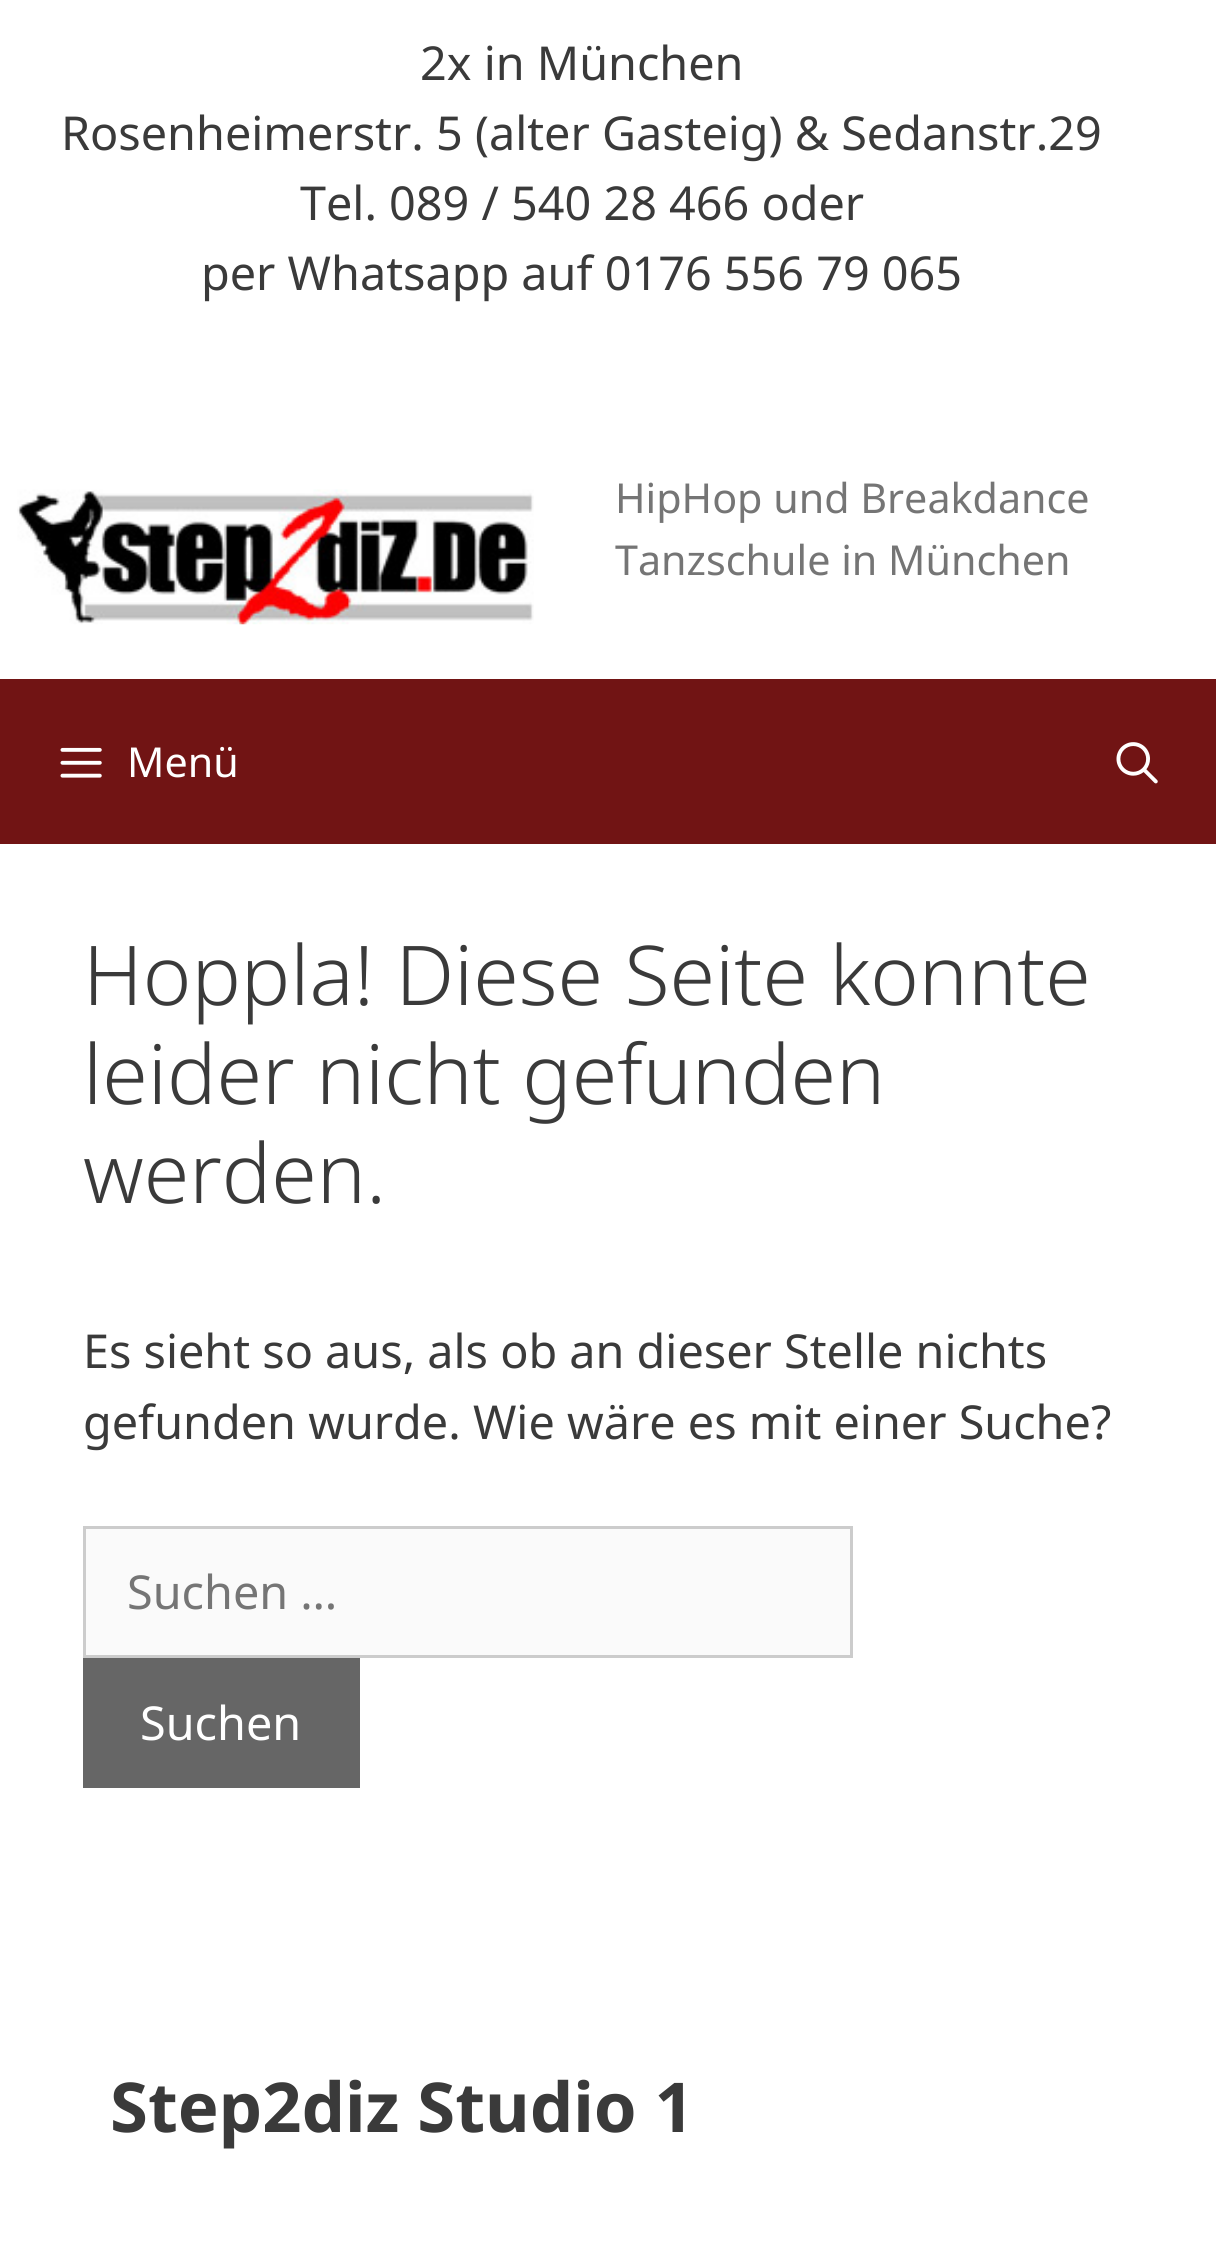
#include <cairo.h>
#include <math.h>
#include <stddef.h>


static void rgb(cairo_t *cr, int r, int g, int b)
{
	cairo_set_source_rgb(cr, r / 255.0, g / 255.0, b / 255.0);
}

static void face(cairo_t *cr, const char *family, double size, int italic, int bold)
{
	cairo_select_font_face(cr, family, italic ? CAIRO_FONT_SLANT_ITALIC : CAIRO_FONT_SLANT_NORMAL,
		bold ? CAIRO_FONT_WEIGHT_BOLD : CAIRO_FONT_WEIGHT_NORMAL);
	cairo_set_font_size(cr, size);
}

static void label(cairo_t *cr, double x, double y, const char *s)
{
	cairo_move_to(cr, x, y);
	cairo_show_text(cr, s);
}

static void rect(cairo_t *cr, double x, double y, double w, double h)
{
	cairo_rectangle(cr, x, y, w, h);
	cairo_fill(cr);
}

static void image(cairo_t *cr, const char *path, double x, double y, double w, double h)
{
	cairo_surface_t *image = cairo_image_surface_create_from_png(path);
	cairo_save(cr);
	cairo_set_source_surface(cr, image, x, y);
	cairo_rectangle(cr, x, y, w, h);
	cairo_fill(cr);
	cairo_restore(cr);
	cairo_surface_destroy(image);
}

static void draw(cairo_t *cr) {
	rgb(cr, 113, 20, 20);
	cairo_paint(cr);
	rgb(cr, 255, 255, 255);
	rect(cr, 0, 0, 1216, 679);
	face(cr, "Noto Sans", 46.75, 0, 0);
	rgb(cr, 58, 58, 58);
	label(cr, 420, 80, "2x in München");
	label(cr, 61, 150, "Rosenheimerstr. 5 (alter Gasteig) & Sedanstr.29");
	label(cr, 300, 220, "Tel. 089 / 540 28 466 oder");
	label(cr, 201, 290, "per Whatsapp auf 0176 556 79 065");
	image(cr, "image0.png", 17, 489, 517, 136);
	face(cr, "Noto Sans", 41.25, 0, 0);
	rgb(cr, 117, 117, 117);
	label(cr, 615, 513, "HipHop und Breakdance");
	label(cr, 615, 575, "Tanzschule in München");
	image(cr, "image1.png", 60, 747, 42, 31);
	rgb(cr, 255, 255, 255);
	label(cr, 127, 777, "Menü");
	image(cr, "image2.png", 1116, 742, 42, 42);
	rect(cr, 0, 844, 1216, 1404);
	face(cr, "Noto Sans Light", 82.5, 0, 0);
	rgb(cr, 58, 58, 58);
	label(cr, 83, 1005, "Hoppla! Diese Seite konnte");
	label(cr, 83, 1104, "leider nicht gefunden");
	label(cr, 83, 1203, "werden.");
	face(cr, "Noto Sans", 46.75, 0, 0);
	label(cr, 83, 1368, "Es sieht so aus, als ob an dieser Stelle nichts");
	label(cr, 83, 1439, "gefunden wurde. Wie wäre es mit einer Suche?");
	rgb(cr, 250, 250, 250);
	cairo_rectangle(cr, 84.5, 1527.5, 767, 129);
	cairo_fill_preserve(cr);
	rgb(cr, 204, 204, 204);
	cairo_set_line_width(cr, 3);
	cairo_stroke(cr);
	rgb(cr, 117, 117, 117);
	label(cr, 127, 1609, "Suchen …");
	rgb(cr, 102, 102, 102);
	rect(cr, 83, 1658, 277, 130);
	rgb(cr, 255, 255, 255);
	label(cr, 140, 1740, "Suchen");
	face(cr, "Noto Sans", 68.75, 0, 1);
	rgb(cr, 58, 58, 58);
	label(cr, 110, 2132, "Step2diz Studio 1");
}

int main(void) {
	cairo_surface_t *surface = cairo_image_surface_create(CAIRO_FORMAT_RGB24, 1216, 2248);
	cairo_t *cr = cairo_create(surface);
	cairo_font_options_t *options = cairo_font_options_create();
	cairo_font_options_set_hint_metrics(options, CAIRO_HINT_METRICS_OFF);
	cairo_font_options_set_hint_style(options, CAIRO_HINT_STYLE_NONE);
	cairo_set_font_options(cr, options);
	cairo_set_miter_limit(cr, 4);
	draw(cr);
	cairo_surface_write_to_png(surface, "render.png");
	cairo_font_options_destroy(options);
	cairo_destroy(cr);
	cairo_surface_destroy(surface);
	return 0;
}
